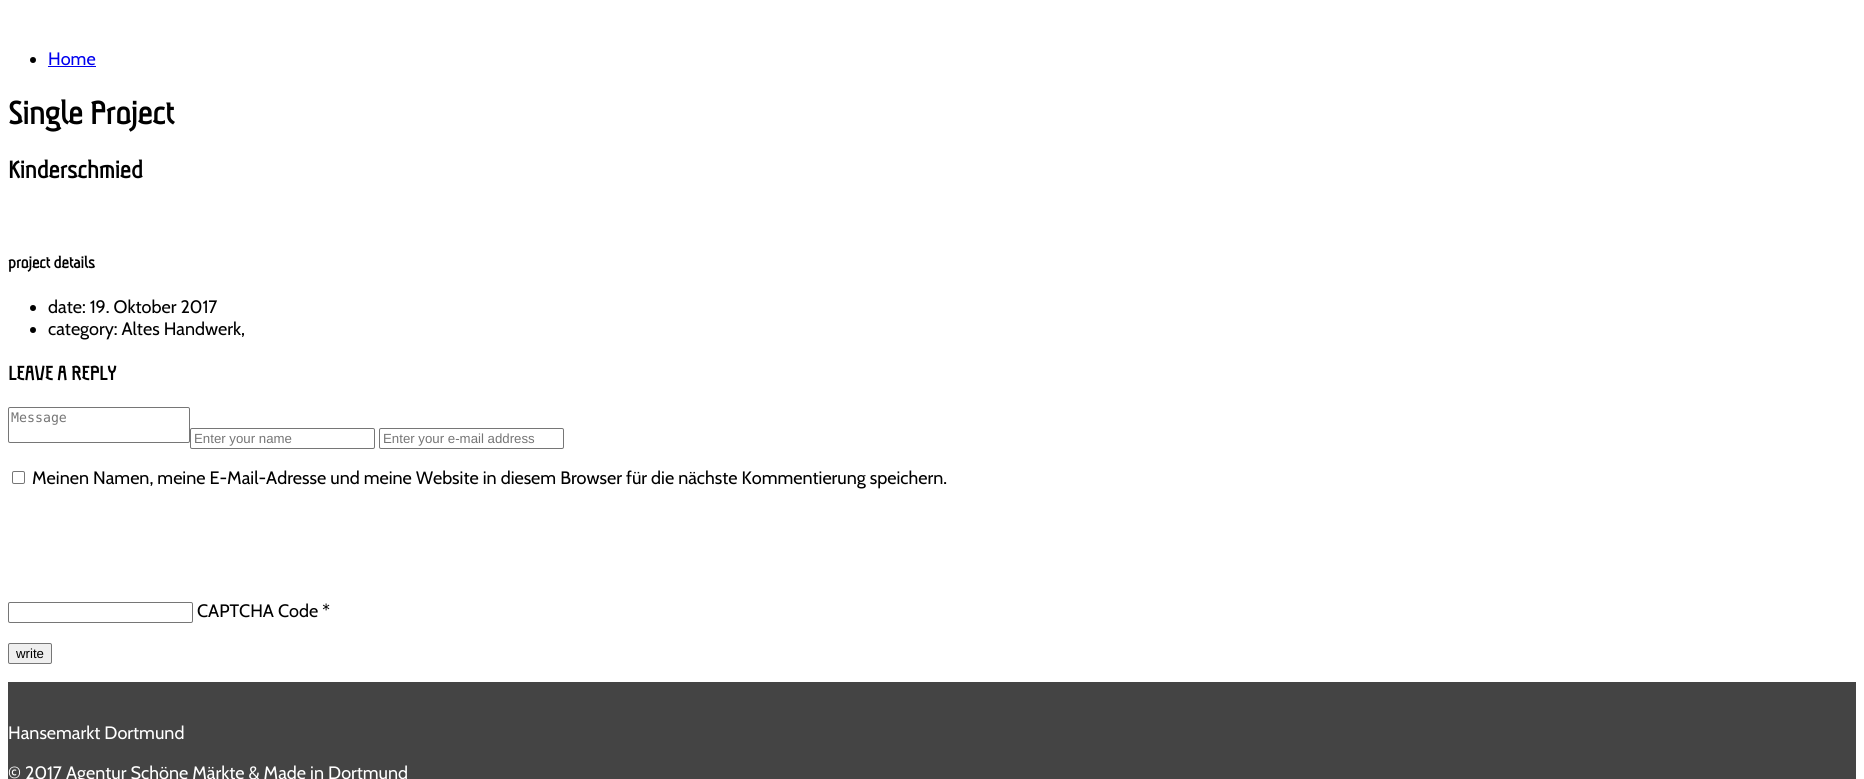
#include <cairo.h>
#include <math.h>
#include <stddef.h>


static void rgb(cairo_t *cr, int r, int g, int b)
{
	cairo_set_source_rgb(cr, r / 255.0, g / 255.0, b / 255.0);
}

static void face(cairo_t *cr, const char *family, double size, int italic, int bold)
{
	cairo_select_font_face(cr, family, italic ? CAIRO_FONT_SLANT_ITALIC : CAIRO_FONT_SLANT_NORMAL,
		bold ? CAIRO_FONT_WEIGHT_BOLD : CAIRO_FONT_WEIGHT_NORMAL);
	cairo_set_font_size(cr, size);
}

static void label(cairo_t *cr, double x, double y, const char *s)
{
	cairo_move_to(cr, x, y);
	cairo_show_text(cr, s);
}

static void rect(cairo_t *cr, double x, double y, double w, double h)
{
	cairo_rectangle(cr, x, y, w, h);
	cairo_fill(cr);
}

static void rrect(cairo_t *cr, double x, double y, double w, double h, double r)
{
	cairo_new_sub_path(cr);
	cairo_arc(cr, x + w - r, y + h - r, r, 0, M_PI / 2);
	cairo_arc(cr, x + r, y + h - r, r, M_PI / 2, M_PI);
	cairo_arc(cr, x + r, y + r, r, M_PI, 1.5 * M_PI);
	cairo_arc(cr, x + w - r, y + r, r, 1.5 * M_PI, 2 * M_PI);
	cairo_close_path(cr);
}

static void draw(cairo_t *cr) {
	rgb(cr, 255, 255, 255);
	cairo_paint(cr);
	rgb(cr, 0, 0, 0);
	cairo_arc(cr, 33, 60, 3, 0, 2 * M_PI);
	cairo_fill(cr);
	face(cr, "Cabin", 18, 0, 0);
	rgb(cr, 0, 0, 238);
	label(cr, 48, 65, "Home");
	rect(cr, 48, 66, 48, 1);
	face(cr, "Aubrey", 36, 0, 1);
	rgb(cr, 0, 0, 0);
	label(cr, 8, 124, "Single Project");
	face(cr, "Aubrey", 27, 0, 1);
	label(cr, 8, 178, "Kinderschmied");
	face(cr, "Aubrey", 18, 0, 1);
	label(cr, 8, 268, "project details");
	cairo_new_path(cr);
	cairo_arc(cr, 33, 308, 3, 0, 2 * M_PI);
	cairo_fill(cr);
	face(cr, "Cabin", 18, 0, 0);
	label(cr, 48, 313, "date: 19. Oktober 2017");
	cairo_new_path(cr);
	cairo_arc(cr, 33, 330, 3, 0, 2 * M_PI);
	cairo_fill(cr);
	label(cr, 48, 335, "category: Altes Handwerk,");
	face(cr, "Aubrey", 22, 0, 1);
	label(cr, 8, 380, "LEAVE A REPLY");
	rrect(cr, 8.5, 407.5, 181, 35, 1.5);
	rgb(cr, 118, 118, 118);
	cairo_set_line_width(cr, 1);
	cairo_stroke(cr);
	face(cr, "DejaVu Sans Mono", 13.25, 0, 0);
	rgb(cr, 117, 117, 117);
	label(cr, 11, 422, "Message");
	rrect(cr, 190.5, 428.5, 184, 20, 1.5);
	rgb(cr, 118, 118, 118);
	cairo_stroke(cr);
	face(cr, "Liberation Sans", 13.25, 0, 0);
	rgb(cr, 117, 117, 117);
	label(cr, 194, 443, "Enter your name");
	rrect(cr, 379.5, 428.5, 184, 20, 1.5);
	rgb(cr, 118, 118, 118);
	cairo_stroke(cr);
	rgb(cr, 117, 117, 117);
	label(cr, 383, 443, "Enter your e-mail address");
	rrect(cr, 12.5, 471.5, 12, 12, 1.5);
	rgb(cr, 118, 118, 118);
	cairo_stroke(cr);
	face(cr, "Cabin", 18, 0, 0);
	rgb(cr, 0, 0, 0);
	label(cr, 32, 484, "Meinen Namen, meine E-Mail-Adresse und meine Website in diesem Browser für die nächste Kommentierung speichern.");
	rrect(cr, 8.5, 602.5, 184, 20, 1.5);
	rgb(cr, 118, 118, 118);
	cairo_stroke(cr);
	rgb(cr, 0, 0, 0);
	label(cr, 197, 617, "CAPTCHA Code *");
	rgb(cr, 239, 239, 239);
	rrect(cr, 8.5, 643.5, 43, 20, 1.5);
	cairo_fill_preserve(cr);
	rgb(cr, 118, 118, 118);
	cairo_stroke(cr);
	face(cr, "Liberation Sans", 13.25, 0, 0);
	rgb(cr, 0, 0, 0);
	label(cr, 16, 658, "write");
	rgb(cr, 68, 68, 68);
	rect(cr, 8, 682, 1848, 97);
	face(cr, "Cabin", 18, 0, 0);
	rgb(cr, 255, 255, 255);
	label(cr, 8, 739, "Hansemarkt Dortmund");
	label(cr, 8, 779, "© 2017 Agentur Schöne Märkte & Made in Dortmund");
}

int main(void) {
	cairo_surface_t *surface = cairo_image_surface_create(CAIRO_FORMAT_RGB24, 1864, 779);
	cairo_t *cr = cairo_create(surface);
	cairo_font_options_t *options = cairo_font_options_create();
	cairo_font_options_set_hint_metrics(options, CAIRO_HINT_METRICS_OFF);
	cairo_font_options_set_hint_style(options, CAIRO_HINT_STYLE_NONE);
	cairo_set_font_options(cr, options);
	cairo_set_miter_limit(cr, 4);
	draw(cr);
	cairo_surface_write_to_png(surface, "render.png");
	cairo_font_options_destroy(options);
	cairo_destroy(cr);
	cairo_surface_destroy(surface);
	return 0;
}
